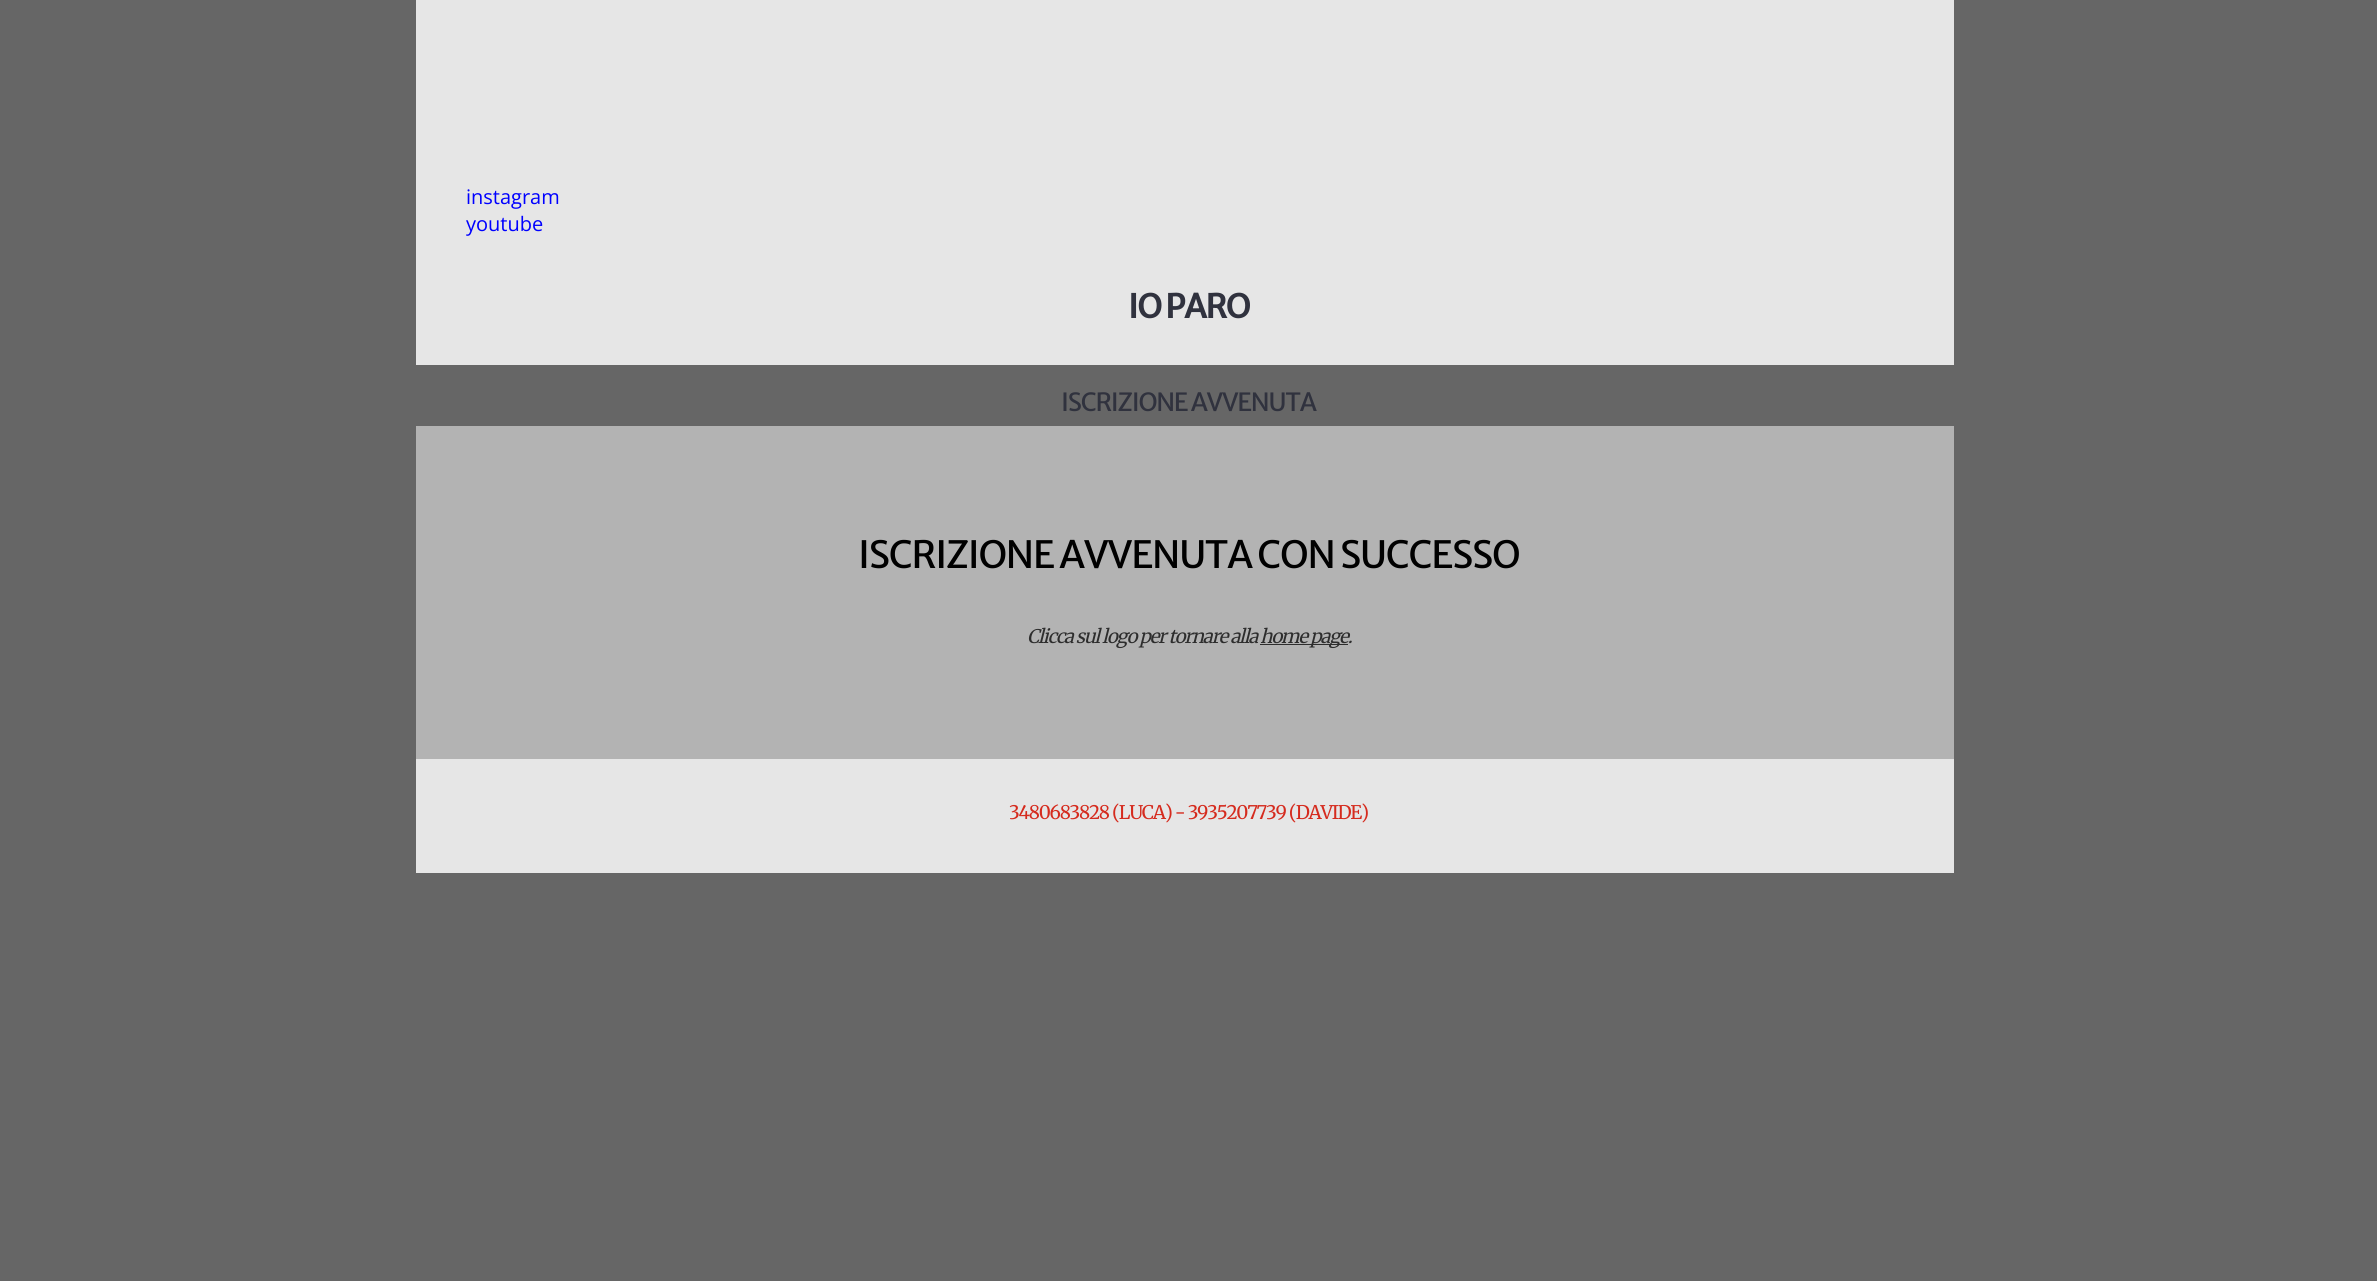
#include <cairo.h>
#include <math.h>
#include <stddef.h>


static void rgb(cairo_t *cr, int r, int g, int b)
{
	cairo_set_source_rgb(cr, r / 255.0, g / 255.0, b / 255.0);
}

static void face(cairo_t *cr, const char *family, double size, int italic, int bold)
{
	cairo_select_font_face(cr, family, italic ? CAIRO_FONT_SLANT_ITALIC : CAIRO_FONT_SLANT_NORMAL,
		bold ? CAIRO_FONT_WEIGHT_BOLD : CAIRO_FONT_WEIGHT_NORMAL);
	cairo_set_font_size(cr, size);
}

static void label(cairo_t *cr, double x, double y, const char *s)
{
	cairo_move_to(cr, x, y);
	cairo_show_text(cr, s);
}

static void tracked(cairo_t *cr, double x, double y, const char *s, double letter, double word)
{
	cairo_move_to(cr, x, y);
	while (*s) {
		char ch[5] = {0};
		int n = 0;
		do ch[n++] = *s++; while ((*s & 0xC0) == 0x80);
		cairo_show_text(cr, ch);
		cairo_rel_move_to(cr, letter + word * (*ch == ' '), 0);
	}
}

static void rect(cairo_t *cr, double x, double y, double w, double h)
{
	cairo_rectangle(cr, x, y, w, h);
	cairo_fill(cr);
}

static void draw(cairo_t *cr) {
	rgb(cr, 102, 102, 102);
	cairo_paint(cr);
	rgb(cr, 230, 230, 230);
	rect(cr, 416, 0, 1538, 365);
	face(cr, "Open Sans", 20, 0, 0);
	rgb(cr, 0, 0, 255);
	label(cr, 466, 204, "instagram");
	label(cr, 466, 231, "youtube");
	face(cr, "Merriweather Sans", 32.5, 0, 1);
	rgb(cr, 48, 50, 62);
	tracked(cr, 1128, 318, "IO PARO", -1.25, 0);
	face(cr, "Merriweather Sans", 25, 0, 0);
	tracked(cr, 1061, 411, "ISCRIZIONE AVVENUTA", -1.25, 0);
	rgb(cr, 179, 179, 179);
	rect(cr, 416, 426, 1538, 333);
	face(cr, "Merriweather Sans", 37.5, 0, 0);
	rgb(cr, 0, 0, 0);
	tracked(cr, 858, 568, "ISCRIZIONE AVVENUTA CON SUCCESSO", -1.25, 0);
	face(cr, "Merriweather", 18.75, 1, 0);
	rgb(cr, 45, 45, 45);
	tracked(cr, 1027, 643, "Clicca sul logo per tornare alla", -1.25, 0);
	rect(cr, 1260, 644, 88, 1);
	tracked(cr, 1260, 643, "home page.", -1.25, 0);
	rgb(cr, 230, 230, 230);
	rect(cr, 416, 759, 1538, 114);
	face(cr, "Merriweather", 18.75, 0, 0);
	rgb(cr, 213, 43, 30);
	tracked(cr, 1009, 819, "3480683828 (LUCA) - 3935207739 (DAVIDE)", -1.25, 0);
}

int main(void) {
	cairo_surface_t *surface = cairo_image_surface_create(CAIRO_FORMAT_RGB24, 2377, 1281);
	cairo_t *cr = cairo_create(surface);
	cairo_font_options_t *options = cairo_font_options_create();
	cairo_font_options_set_hint_metrics(options, CAIRO_HINT_METRICS_OFF);
	cairo_font_options_set_hint_style(options, CAIRO_HINT_STYLE_NONE);
	cairo_set_font_options(cr, options);
	cairo_set_miter_limit(cr, 4);
	draw(cr);
	cairo_surface_write_to_png(surface, "render.png");
	cairo_font_options_destroy(options);
	cairo_destroy(cr);
	cairo_surface_destroy(surface);
	return 0;
}
